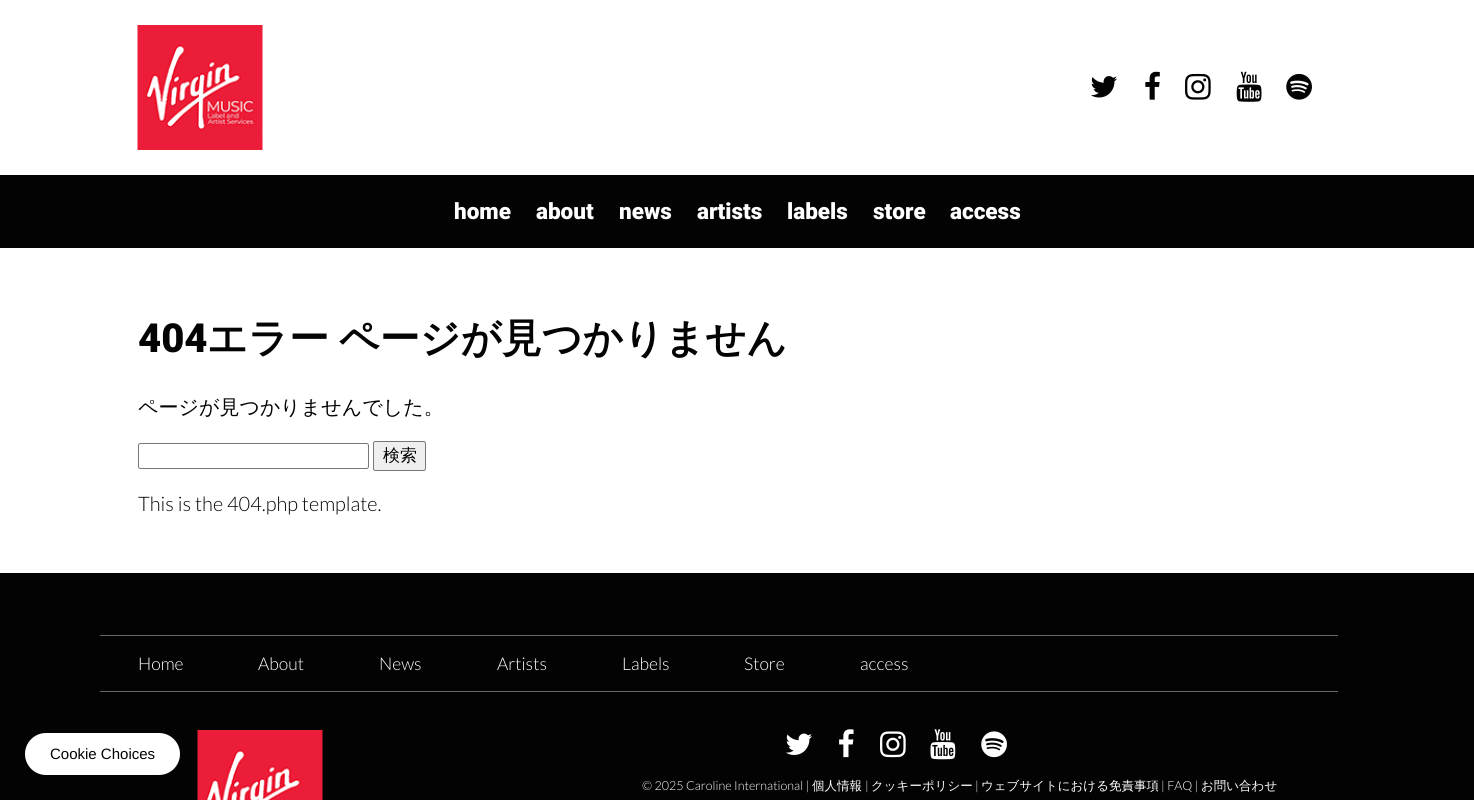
#include <cairo.h>
#include <math.h>
#include <stddef.h>


static void rgb(cairo_t *cr, int r, int g, int b)
{
	cairo_set_source_rgb(cr, r / 255.0, g / 255.0, b / 255.0);
}

static void face(cairo_t *cr, const char *family, double size, int italic, int bold)
{
	cairo_select_font_face(cr, family, italic ? CAIRO_FONT_SLANT_ITALIC : CAIRO_FONT_SLANT_NORMAL,
		bold ? CAIRO_FONT_WEIGHT_BOLD : CAIRO_FONT_WEIGHT_NORMAL);
	cairo_set_font_size(cr, size);
}

static void label(cairo_t *cr, double x, double y, const char *s)
{
	cairo_move_to(cr, x, y);
	cairo_show_text(cr, s);
}

static void tracked(cairo_t *cr, double x, double y, const char *s, double letter, double word)
{
	cairo_move_to(cr, x, y);
	while (*s) {
		char ch[5] = {0};
		int n = 0;
		do ch[n++] = *s++; while ((*s & 0xC0) == 0x80);
		cairo_show_text(cr, ch);
		cairo_rel_move_to(cr, letter + word * (*ch == ' '), 0);
	}
}

static void rect(cairo_t *cr, double x, double y, double w, double h)
{
	cairo_rectangle(cr, x, y, w, h);
	cairo_fill(cr);
}

static void rrect(cairo_t *cr, double x, double y, double w, double h, double r)
{
	cairo_new_sub_path(cr);
	cairo_arc(cr, x + w - r, y + h - r, r, 0, M_PI / 2);
	cairo_arc(cr, x + r, y + h - r, r, M_PI / 2, M_PI);
	cairo_arc(cr, x + r, y + r, r, M_PI, 1.5 * M_PI);
	cairo_arc(cr, x + w - r, y + r, r, 1.5 * M_PI, 2 * M_PI);
	cairo_close_path(cr);
}

static void image(cairo_t *cr, const char *path, double x, double y, double w, double h)
{
	cairo_surface_t *image = cairo_image_surface_create_from_png(path);
	cairo_save(cr);
	cairo_set_source_surface(cr, image, x, y);
	cairo_rectangle(cr, x, y, w, h);
	cairo_fill(cr);
	cairo_restore(cr);
	cairo_surface_destroy(image);
}

static void draw(cairo_t *cr) {
	rgb(cr, 255, 255, 255);
	cairo_paint(cr);
	rgb(cr, 3, 3, 3);
	rect(cr, 0, 573, 1474, 227);
	rgb(cr, 255, 255, 255);
	rrect(cr, 25, 733, 155, 42, 21);
	cairo_fill(cr);
	face(cr, "Liberation Sans", 15, 0, 0);
	rgb(cr, 3, 3, 3);
	label(cr, 50, 759, "Cookie Choices");
	image(cr, "image0.png", 137, 25, 126, 125);
	image(cr, "image1.png", 1091, 76, 26, 22);
	image(cr, "image2.png", 1145, 71, 15, 29);
	image(cr, "image3.png", 1185, 73, 26, 27);
	image(cr, "image4.png", 1236, 71, 26, 31);
	image(cr, "image5.png", 1286, 73, 26, 27);
	rect(cr, 0, 175, 1474, 73);
	face(cr, "Roboto Black", 22.5, 0, 0);
	rgb(cr, 255, 255, 255);
	label(cr, 454, 219, "home");
	label(cr, 536, 219, "about");
	label(cr, 619, 219, "news");
	label(cr, 697, 219, "artists");
	label(cr, 787, 219, "labels");
	label(cr, 873, 219, "store");
	label(cr, 950, 219, "access");
	face(cr, "Roboto Black", 40, 0, 0);
	rgb(cr, 3, 3, 3);
	label(cr, 138, 352, "404");
	face(cr, "WenQuanYi Zen Hei", 40, 0, 1);
	tracked(cr, 207, 352, "エラー ページが見つかりません", 0, -2);
	face(cr, "WenQuanYi Zen Hei Medium", 20, 0, 0);
	label(cr, 138, 414, "ページが見つかりませんでした。");
	rrect(cr, 138.5, 443.5, 230, 25, 2);
	rgb(cr, 119, 119, 119);
	cairo_set_line_width(cr, 1);
	cairo_stroke(cr);
	rgb(cr, 239, 239, 239);
	rrect(cr, 373.5, 441.5, 52, 29, 2);
	cairo_fill_preserve(cr);
	rgb(cr, 119, 119, 119);
	cairo_stroke(cr);
	face(cr, "WenQuanYi Zen Hei Medium", 17, 0, 0);
	rgb(cr, 3, 3, 3);
	label(cr, 383, 461, "検索");
	face(cr, "Lato Light", 20, 0, 0);
	label(cr, 138, 511, "This is the 404.php template.");
	rgb(cr, 104, 104, 104);
	rect(cr, 100, 635, 1238, 1);
	rect(cr, 100, 691, 1238, 1);
	face(cr, "Lato Light", 17.5, 0, 0);
	rgb(cr, 255, 255, 255);
	label(cr, 138, 670, "Home");
	label(cr, 258, 670, "About");
	label(cr, 379, 670, "News");
	label(cr, 497, 670, "Artists");
	label(cr, 622, 670, "Labels");
	label(cr, 744, 670, "Store");
	label(cr, 860, 670, "access");
	image(cr, "image6.png", 197, 730, 126, 70);
	image(cr, "image7.png", 786, 733, 26, 22);
	image(cr, "image8.png", 839, 729, 15, 29);
	image(cr, "image9.png", 880, 731, 26, 27);
	image(cr, "image10.png", 930, 729, 26, 31);
	image(cr, "image11.png", 981, 731, 26, 27);
	face(cr, "Lato Light", 12.5, 0, 0);
	label(cr, 642, 790, "© 2025 Caroline International |");
	face(cr, "WenQuanYi Zen Hei Medium", 12.5, 0, 0);
	label(cr, 812, 790, "個人情報");
	face(cr, "Lato Light", 12.5, 0, 0);
	label(cr, 865, 790, "|");
	face(cr, "WenQuanYi Zen Hei Medium", 12.5, 0, 0);
	label(cr, 871, 790, "クッキーポリシー");
	face(cr, "Lato Light", 12.5, 0, 0);
	label(cr, 975, 790, "|");
	face(cr, "WenQuanYi Zen Hei Medium", 12.5, 0, 0);
	label(cr, 981, 790, "ウェブサイトにおける免責事項");
	face(cr, "Lato Light", 12.5, 0, 0);
	label(cr, 1161, 790, "| FAQ |");
	face(cr, "WenQuanYi Zen Hei Medium", 12.5, 0, 0);
	label(cr, 1201, 790, "お問い合わせ");
}

int main(void) {
	cairo_surface_t *surface = cairo_image_surface_create(CAIRO_FORMAT_RGB24, 1474, 800);
	cairo_t *cr = cairo_create(surface);
	cairo_font_options_t *options = cairo_font_options_create();
	cairo_font_options_set_hint_metrics(options, CAIRO_HINT_METRICS_OFF);
	cairo_font_options_set_hint_style(options, CAIRO_HINT_STYLE_NONE);
	cairo_set_font_options(cr, options);
	cairo_set_miter_limit(cr, 4);
	draw(cr);
	cairo_surface_write_to_png(surface, "render.png");
	cairo_font_options_destroy(options);
	cairo_destroy(cr);
	cairo_surface_destroy(surface);
	return 0;
}
